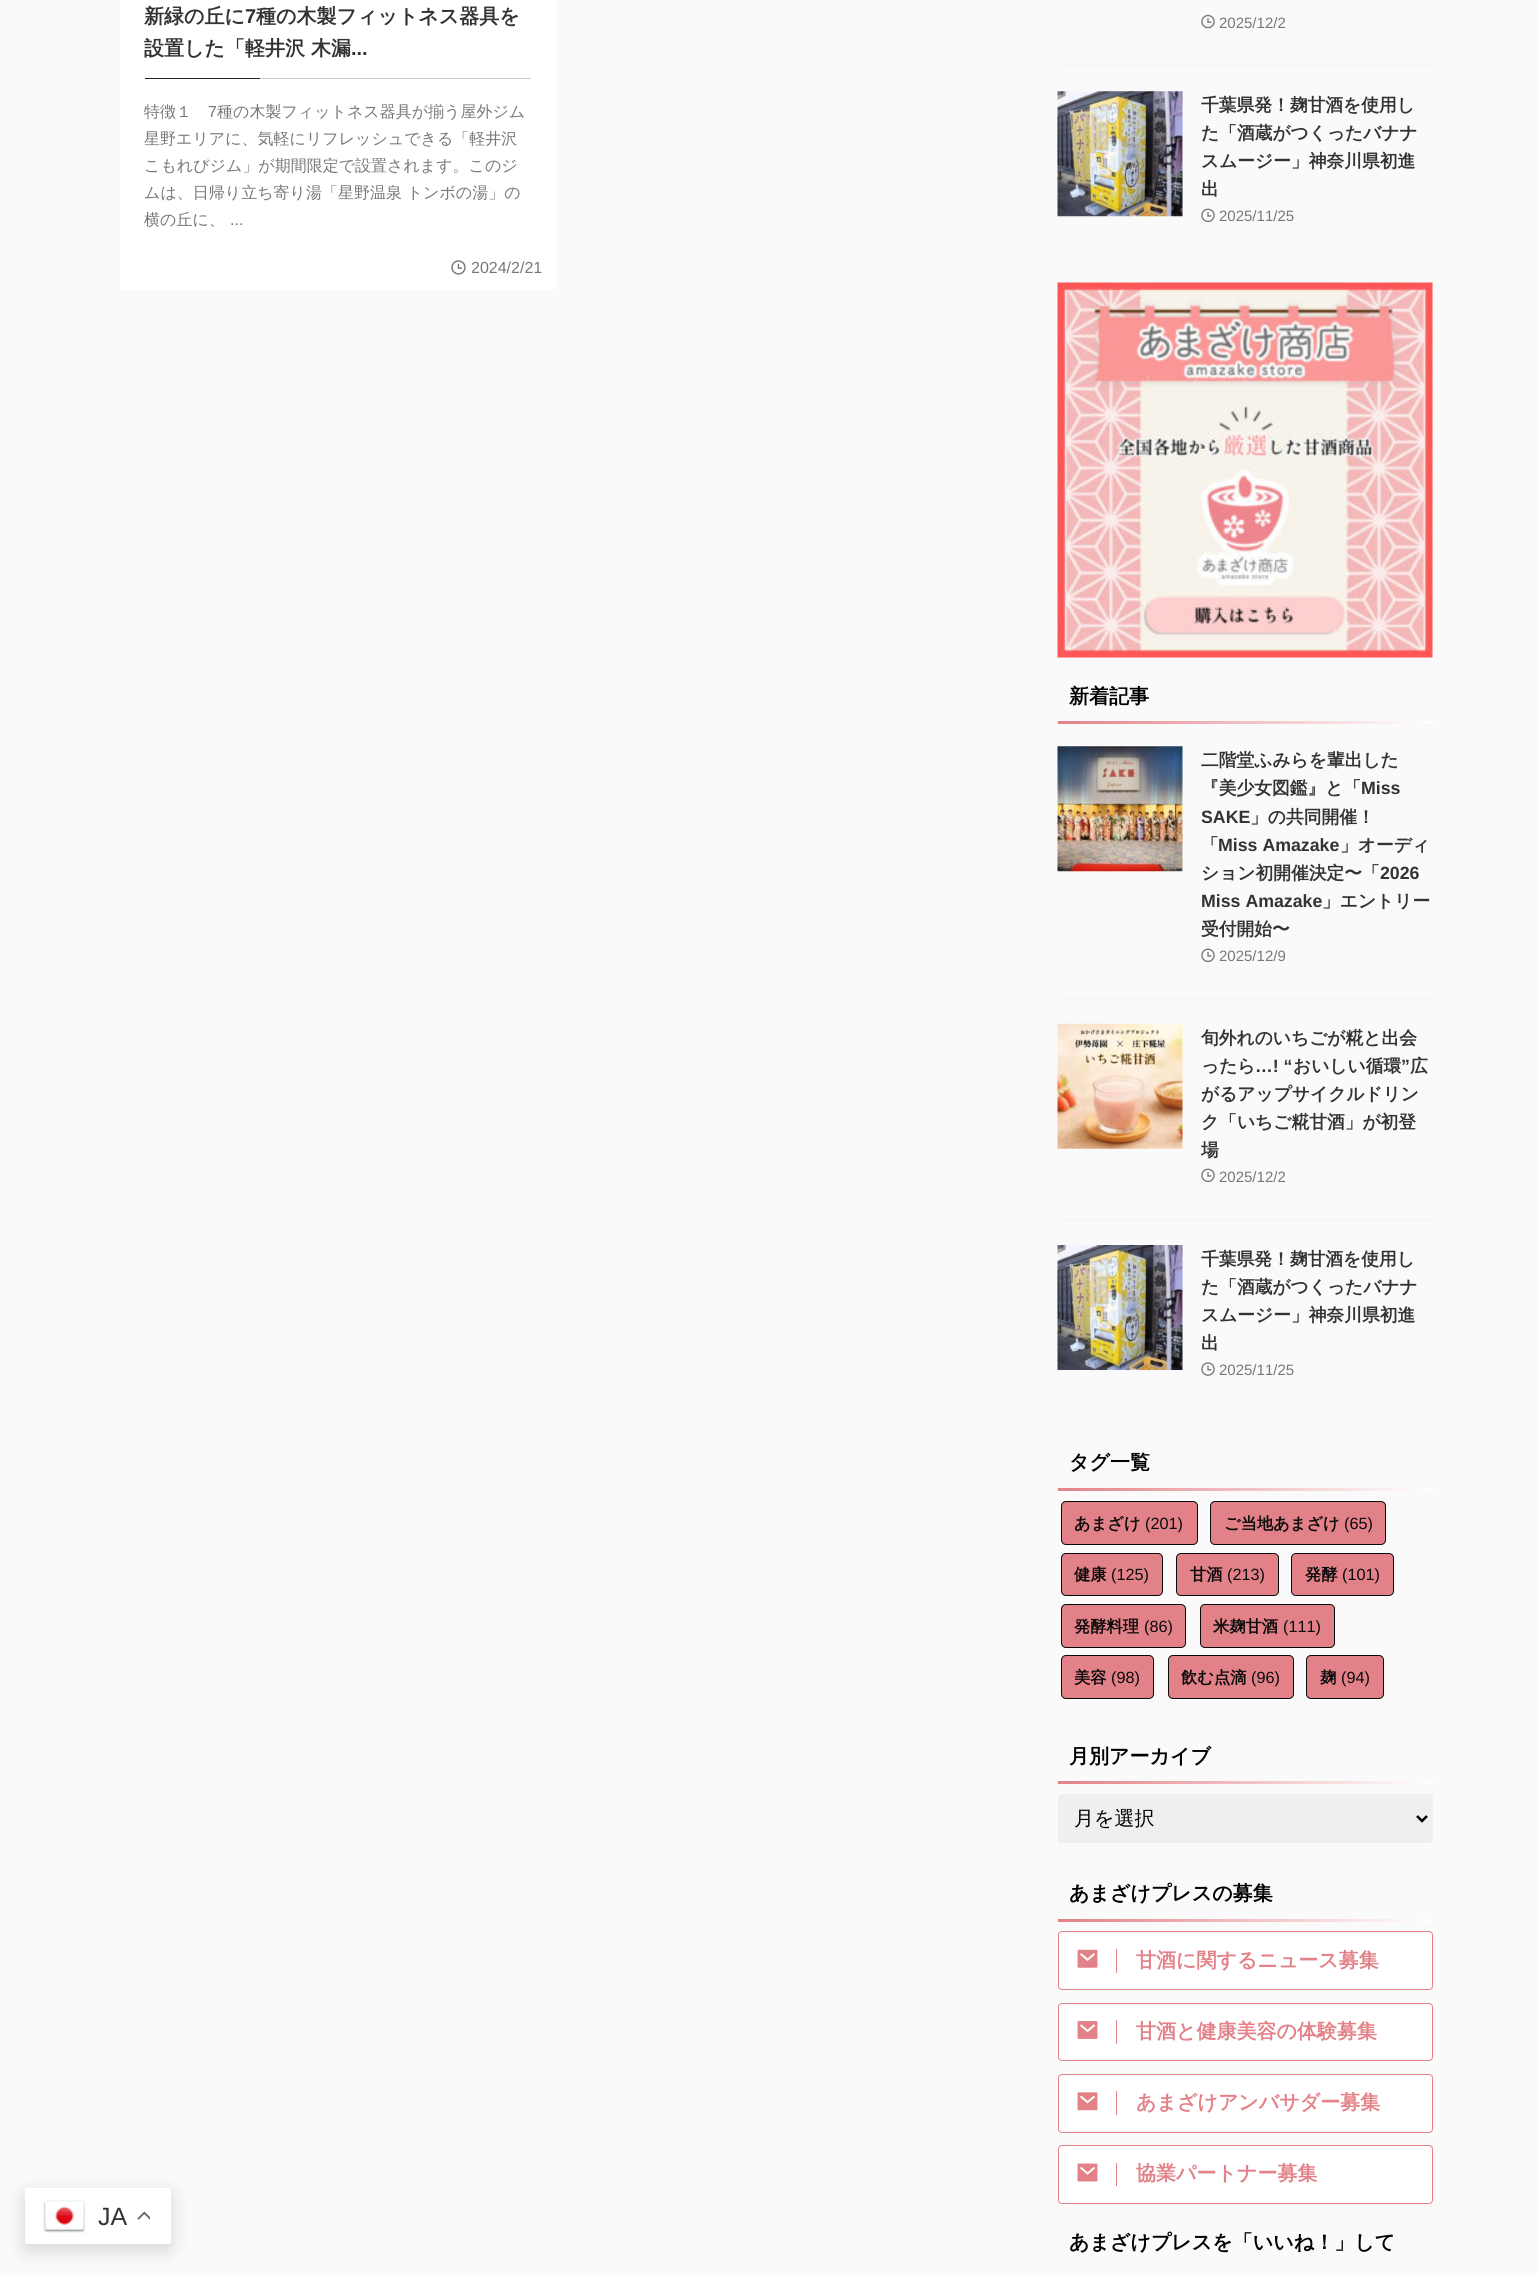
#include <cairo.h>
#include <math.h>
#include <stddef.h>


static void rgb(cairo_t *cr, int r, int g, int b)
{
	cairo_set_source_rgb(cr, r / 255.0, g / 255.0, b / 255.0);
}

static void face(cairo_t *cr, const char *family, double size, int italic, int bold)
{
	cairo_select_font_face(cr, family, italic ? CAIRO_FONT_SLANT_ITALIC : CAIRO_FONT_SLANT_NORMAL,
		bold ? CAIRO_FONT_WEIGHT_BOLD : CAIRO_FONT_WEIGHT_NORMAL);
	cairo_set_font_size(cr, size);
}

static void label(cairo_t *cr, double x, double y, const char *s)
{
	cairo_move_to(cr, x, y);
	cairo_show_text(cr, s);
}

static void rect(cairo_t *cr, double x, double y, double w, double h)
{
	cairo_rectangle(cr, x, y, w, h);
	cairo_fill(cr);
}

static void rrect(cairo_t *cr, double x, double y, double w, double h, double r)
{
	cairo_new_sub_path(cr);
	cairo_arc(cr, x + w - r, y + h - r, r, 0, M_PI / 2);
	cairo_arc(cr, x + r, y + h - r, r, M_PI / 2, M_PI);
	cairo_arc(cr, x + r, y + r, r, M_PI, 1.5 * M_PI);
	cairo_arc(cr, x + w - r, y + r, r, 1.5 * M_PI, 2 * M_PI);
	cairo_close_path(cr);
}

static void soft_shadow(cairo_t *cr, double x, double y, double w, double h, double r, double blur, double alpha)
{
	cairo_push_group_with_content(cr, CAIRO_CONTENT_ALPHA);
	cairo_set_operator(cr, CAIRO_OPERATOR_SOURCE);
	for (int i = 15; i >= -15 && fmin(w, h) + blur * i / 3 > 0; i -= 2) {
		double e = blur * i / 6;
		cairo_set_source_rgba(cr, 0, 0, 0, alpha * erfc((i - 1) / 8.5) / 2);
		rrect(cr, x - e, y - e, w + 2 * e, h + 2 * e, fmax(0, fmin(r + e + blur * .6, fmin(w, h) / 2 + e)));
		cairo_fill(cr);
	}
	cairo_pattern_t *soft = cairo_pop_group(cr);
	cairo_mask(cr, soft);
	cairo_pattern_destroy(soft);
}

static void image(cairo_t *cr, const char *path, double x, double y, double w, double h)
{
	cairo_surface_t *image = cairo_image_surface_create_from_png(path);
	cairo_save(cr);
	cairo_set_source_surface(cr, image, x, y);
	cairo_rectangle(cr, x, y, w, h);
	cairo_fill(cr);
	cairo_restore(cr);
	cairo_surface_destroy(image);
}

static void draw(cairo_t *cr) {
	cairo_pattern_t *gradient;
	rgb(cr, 250, 250, 250);
	cairo_paint(cr);
	rgb(cr, 0, 0, 0);
	soft_shadow(cr, 25, 2194, 146, 56, 2.5, 9.5, 0.15);
	rgb(cr, 255, 255, 255);
	rrect(cr, 25, 2188, 146, 56, 2.5);
	cairo_fill(cr);
	image(cr, "image0.png", 43, 2200, 42, 33);
	face(cr, "Liberation Sans", 25, 0, 0);
	rgb(cr, 51, 51, 51);
	label(cr, 98, 2225, "JA");
	image(cr, "image1.png", 137, 2211, 13, 9);
	rgb(cr, 255, 255, 255);
	rect(cr, 120, 0, 436, 290);
	rgb(cr, 204, 204, 204);
	rect(cr, 260, 78, 271, 1);
	face(cr, "WenQuanYi Zen Hei", 20, 0, 1);
	rgb(cr, 51, 51, 51);
	label(cr, 144, 23, "新緑の丘に");
	face(cr, "Liberation Sans", 20, 0, 1);
	label(cr, 245, 23, "7");
	face(cr, "WenQuanYi Zen Hei", 20, 0, 1);
	label(cr, 256, 23, "種の木製フィットネス器具を");
	label(cr, 144, 55, "設置した「軽井沢 木漏");
	face(cr, "Liberation Sans", 20, 0, 1);
	label(cr, 351, 55, "...");
	rgb(cr, 33, 33, 33);
	rect(cr, 145, 78, 115, 1);
	face(cr, "WenQuanYi Zen Hei Medium", 16, 0, 0);
	rgb(cr, 119, 119, 119);
	label(cr, 144, 117, "特徴１");
	face(cr, "Liberation Sans", 16, 0, 0);
	label(cr, 208, 117, "7");
	face(cr, "WenQuanYi Zen Hei Medium", 16, 0, 0);
	label(cr, 217, 117, "種の木製フィットネス器具が揃う屋外ジム");
	label(cr, 144, 144, "星野エリアに、気軽にリフレッシュできる「軽井沢");
	label(cr, 144, 171, "こもれびジム」が期間限定で設置されます。このジ");
	label(cr, 144, 198, "ムは、日帰り立ち寄り湯「星野温泉 トンボの湯」の");
	label(cr, 144, 225, "横の丘に、");
	face(cr, "Liberation Sans", 16, 0, 0);
	label(cr, 230, 225, "...");
	image(cr, "image2.png", 451, 260, 15, 15);
	label(cr, 471, 273, "2024/2/21");
	rgb(cr, 243, 243, 243);
	rect(cr, 1058, 65, 375, 1);
	image(cr, "image3.png", 1201, 14, 14, 15);
	face(cr, "Liberation Sans", 15, 0, 0);
	rgb(cr, 119, 119, 119);
	label(cr, 1219, 28, "2025/12/2");
	image(cr, "image4.png", 1057, 91, 126, 126);
	face(cr, "WenQuanYi Zen Hei", 17.75, 0, 1);
	rgb(cr, 51, 51, 51);
	label(cr, 1201, 111, "千葉県発！麹甘酒を使用し");
	label(cr, 1201, 139, "た「酒蔵がつくったバナナ");
	label(cr, 1201, 167, "スムージー」神奈川県初進");
	label(cr, 1201, 195, "出");
	image(cr, "image5.png", 1201, 208, 14, 15);
	face(cr, "Liberation Sans", 15, 0, 0);
	rgb(cr, 119, 119, 119);
	label(cr, 1219, 221, "2025/11/25");
	image(cr, "image6.png", 1057, 282, 376, 376);
	face(cr, "WenQuanYi Zen Hei", 20, 0, 1);
	rgb(cr, 0, 0, 0);
	label(cr, 1069, 703, "新着記事");
	gradient = cairo_pattern_create_linear(1433, 723, 1058, 723);
	cairo_pattern_add_color_stop_rgba(gradient, 0, 1, 1, 1, 1);
	cairo_pattern_add_color_stop_rgba(gradient, 1, 0.89, 0.506, 0.533, 1);
	cairo_set_source(cr, gradient);
	cairo_pattern_destroy(gradient);
	rect(cr, 1058, 721, 375, 3);
	rgb(cr, 243, 243, 243);
	rect(cr, 1058, 998, 375, 1);
	image(cr, "image7.png", 1057, 746, 126, 126);
	face(cr, "WenQuanYi Zen Hei", 17.75, 0, 1);
	rgb(cr, 51, 51, 51);
	label(cr, 1201, 766, "二階堂ふみらを輩出した");
	label(cr, 1201, 794, "『美少女図鑑』と「");
	face(cr, "Liberation Sans", 17.75, 0, 1);
	label(cr, 1361, 794, "Miss");
	label(cr, 1201, 823, "SAKE");
	face(cr, "WenQuanYi Zen Hei", 17.75, 0, 1);
	label(cr, 1250, 823, "」の共同開催！");
	label(cr, 1201, 851, "「");
	face(cr, "Liberation Sans", 17.75, 0, 1);
	label(cr, 1218, 851, "Miss Amazake");
	face(cr, "WenQuanYi Zen Hei", 17.75, 0, 1);
	label(cr, 1340, 851, "」オーディ");
	label(cr, 1201, 879, "ション初開催決定〜「");
	face(cr, "Liberation Sans", 17.75, 0, 1);
	label(cr, 1380, 879, "2026");
	label(cr, 1201, 907, "Miss Amazake");
	face(cr, "WenQuanYi Zen Hei", 17.75, 0, 1);
	label(cr, 1322, 907, "」エントリー");
	label(cr, 1201, 935, "受付開始〜");
	image(cr, "image5.png", 1201, 948, 14, 15);
	face(cr, "Liberation Sans", 15, 0, 0);
	rgb(cr, 119, 119, 119);
	label(cr, 1219, 961, "2025/12/9");
	rgb(cr, 243, 243, 243);
	rect(cr, 1058, 1219, 375, 1);
	image(cr, "image8.png", 1057, 1023, 126, 126);
	face(cr, "WenQuanYi Zen Hei", 17.75, 0, 1);
	rgb(cr, 51, 51, 51);
	label(cr, 1201, 1044, "旬外れのいちごが糀と出会");
	label(cr, 1201, 1072, "ったら");
	face(cr, "Liberation Sans", 17.75, 0, 1);
	label(cr, 1255, 1072, "…! “");
	face(cr, "WenQuanYi Zen Hei", 17.75, 0, 1);
	label(cr, 1293, 1072, "おいしい循環");
	face(cr, "Liberation Sans", 17.75, 0, 1);
	label(cr, 1401, 1072, "”");
	face(cr, "WenQuanYi Zen Hei", 17.75, 0, 1);
	label(cr, 1410, 1072, "広");
	label(cr, 1201, 1100, "がるアップサイクルドリン");
	label(cr, 1201, 1128, "ク「いちご糀甘酒」が初登");
	label(cr, 1201, 1156, "場");
	image(cr, "image5.png", 1201, 1168, 14, 15);
	face(cr, "Liberation Sans", 15, 0, 0);
	rgb(cr, 119, 119, 119);
	label(cr, 1219, 1182, "2025/12/2");
	image(cr, "image9.png", 1057, 1245, 126, 125);
	face(cr, "WenQuanYi Zen Hei", 17.75, 0, 1);
	rgb(cr, 51, 51, 51);
	label(cr, 1201, 1265, "千葉県発！麹甘酒を使用し");
	label(cr, 1201, 1293, "た「酒蔵がつくったバナナ");
	label(cr, 1201, 1321, "スムージー」神奈川県初進");
	label(cr, 1201, 1349, "出");
	image(cr, "image10.png", 1201, 1362, 14, 14);
	face(cr, "Liberation Sans", 15, 0, 0);
	rgb(cr, 119, 119, 119);
	label(cr, 1219, 1375, "2025/11/25");
	face(cr, "WenQuanYi Zen Hei", 20, 0, 1);
	rgb(cr, 0, 0, 0);
	label(cr, 1069, 1469, "タグ一覧");
	gradient = cairo_pattern_create_linear(1433, 1489, 1058, 1489);
	cairo_pattern_add_color_stop_rgba(gradient, 0, 1, 1, 1, 1);
	cairo_pattern_add_color_stop_rgba(gradient, 1, 0.89, 0.506, 0.533, 1);
	cairo_set_source(cr, gradient);
	cairo_pattern_destroy(gradient);
	rect(cr, 1058, 1488, 375, 3);
	rgb(cr, 227, 129, 136);
	rrect(cr, 1061.5, 1501.5, 136, 43, 4.5);
	cairo_fill_preserve(cr);
	rgb(cr, 10, 10, 10);
	cairo_set_line_width(cr, 1);
	cairo_stroke(cr);
	face(cr, "WenQuanYi Zen Hei", 16.25, 0, 1);
	label(cr, 1074, 1529, "あまざけ");
	face(cr, "Liberation Sans", 16.25, 0, 0);
	label(cr, 1145, 1529, "(201)");
	rgb(cr, 227, 129, 136);
	rrect(cr, 1210.5, 1501.5, 175, 43, 4.5);
	cairo_fill_preserve(cr);
	rgb(cr, 10, 10, 10);
	cairo_stroke(cr);
	face(cr, "WenQuanYi Zen Hei", 16.25, 0, 1);
	label(cr, 1224, 1529, "ご当地あまざけ");
	face(cr, "Liberation Sans", 16.25, 0, 0);
	label(cr, 1344, 1529, "(65)");
	rgb(cr, 227, 129, 136);
	rrect(cr, 1061.5, 1553.5, 101, 42, 4.5);
	cairo_fill_preserve(cr);
	rgb(cr, 10, 10, 10);
	cairo_stroke(cr);
	face(cr, "WenQuanYi Zen Hei", 16.25, 0, 1);
	label(cr, 1074, 1580, "健康");
	face(cr, "Liberation Sans", 16.25, 0, 0);
	label(cr, 1111, 1580, "(125)");
	rgb(cr, 227, 129, 136);
	rrect(cr, 1176.5, 1553.5, 102, 42, 4.5);
	cairo_fill_preserve(cr);
	rgb(cr, 10, 10, 10);
	cairo_stroke(cr);
	face(cr, "WenQuanYi Zen Hei", 16.25, 0, 1);
	label(cr, 1190, 1580, "甘酒");
	face(cr, "Liberation Sans", 16.25, 0, 0);
	label(cr, 1227, 1580, "(213)");
	rgb(cr, 227, 129, 136);
	rrect(cr, 1291.5, 1553.5, 102, 42, 4.5);
	cairo_fill_preserve(cr);
	rgb(cr, 10, 10, 10);
	cairo_stroke(cr);
	face(cr, "WenQuanYi Zen Hei", 16.25, 0, 1);
	label(cr, 1305, 1580, "発酵");
	face(cr, "Liberation Sans", 16.25, 0, 0);
	label(cr, 1342, 1580, "(101)");
	rgb(cr, 227, 129, 136);
	rrect(cr, 1061.5, 1604.5, 124, 43, 4.5);
	cairo_fill_preserve(cr);
	rgb(cr, 10, 10, 10);
	cairo_stroke(cr);
	face(cr, "WenQuanYi Zen Hei", 16.25, 0, 1);
	label(cr, 1074, 1632, "発酵料理");
	face(cr, "Liberation Sans", 16.25, 0, 0);
	label(cr, 1144, 1632, "(86)");
	rgb(cr, 227, 129, 136);
	rrect(cr, 1200.5, 1604.5, 134, 43, 4.5);
	cairo_fill_preserve(cr);
	rgb(cr, 10, 10, 10);
	cairo_stroke(cr);
	face(cr, "WenQuanYi Zen Hei", 16.25, 0, 1);
	label(cr, 1213, 1632, "米麹甘酒");
	face(cr, "Liberation Sans", 16.25, 0, 0);
	label(cr, 1283, 1632, "(111)");
	rgb(cr, 227, 129, 136);
	rrect(cr, 1061.5, 1655.5, 92, 43, 4.5);
	cairo_fill_preserve(cr);
	rgb(cr, 10, 10, 10);
	cairo_stroke(cr);
	face(cr, "WenQuanYi Zen Hei", 16.25, 0, 1);
	label(cr, 1074, 1683, "美容");
	face(cr, "Liberation Sans", 16.25, 0, 0);
	label(cr, 1111, 1683, "(98)");
	rgb(cr, 227, 129, 136);
	rrect(cr, 1168.5, 1655.5, 125, 43, 4.5);
	cairo_fill_preserve(cr);
	rgb(cr, 10, 10, 10);
	cairo_stroke(cr);
	face(cr, "WenQuanYi Zen Hei", 16.25, 0, 1);
	label(cr, 1181, 1683, "飲む点滴");
	face(cr, "Liberation Sans", 16.25, 0, 0);
	label(cr, 1251, 1683, "(96)");
	rgb(cr, 227, 129, 136);
	rrect(cr, 1306.5, 1655.5, 77, 43, 4.5);
	cairo_fill_preserve(cr);
	rgb(cr, 10, 10, 10);
	cairo_stroke(cr);
	face(cr, "WenQuanYi Zen Hei", 16.25, 0, 1);
	label(cr, 1320, 1683, "麹");
	face(cr, "Liberation Sans", 16.25, 0, 0);
	label(cr, 1341, 1683, "(94)");
	face(cr, "WenQuanYi Zen Hei", 20, 0, 1);
	rgb(cr, 0, 0, 0);
	label(cr, 1069, 1763, "月別アーカイブ");
	gradient = cairo_pattern_create_linear(1433, 1783, 1058, 1783);
	cairo_pattern_add_color_stop_rgba(gradient, 0, 1, 1, 1, 1);
	cairo_pattern_add_color_stop_rgba(gradient, 1, 0.89, 0.506, 0.533, 1);
	cairo_set_source(cr, gradient);
	cairo_pattern_destroy(gradient);
	rect(cr, 1058, 1781, 375, 3);
	rgb(cr, 239, 239, 239);
	rrect(cr, 1058, 1794, 375, 49, 2.5);
	cairo_fill(cr);
	cairo_new_path(cr);
	cairo_move_to(cr, 1417, 1816);
	cairo_line_to(cr, 1422, 1821);
	cairo_line_to(cr, 1427, 1816);
	rgb(cr, 0, 0, 0);
	cairo_set_line_width(cr, 2.5);
	cairo_stroke(cr);
	face(cr, "WenQuanYi Zen Hei Medium", 20, 0, 0);
	label(cr, 1074, 1825, "月を選択");
	face(cr, "WenQuanYi Zen Hei", 20, 0, 1);
	label(cr, 1069, 1900, "あまざけプレスの募集");
	gradient = cairo_pattern_create_linear(1433, 1920, 1058, 1920);
	cairo_pattern_add_color_stop_rgba(gradient, 0, 1, 1, 1, 1);
	cairo_pattern_add_color_stop_rgba(gradient, 1, 0.89, 0.506, 0.533, 1);
	cairo_set_source(cr, gradient);
	cairo_pattern_destroy(gradient);
	rect(cr, 1058, 1919, 375, 3);
	rgb(cr, 255, 255, 255);
	rrect(cr, 1058.5, 1931.5, 374, 58, 3.5);
	cairo_fill_preserve(cr);
	rgb(cr, 227, 129, 136);
	cairo_set_line_width(cr, 1);
	cairo_stroke(cr);
	rect(cr, 1116, 1949, 1, 24);
	image(cr, "image11.png", 1077, 1949, 21, 19);
	label(cr, 1136, 1967, "甘酒に関するニュース募集");
	rgb(cr, 255, 255, 255);
	rrect(cr, 1058.5, 2003.5, 374, 57, 3.5);
	cairo_fill_preserve(cr);
	rgb(cr, 227, 129, 136);
	cairo_stroke(cr);
	rect(cr, 1116, 2020, 1, 24);
	image(cr, "image12.png", 1077, 2021, 21, 18);
	label(cr, 1136, 2038, "甘酒と健康美容の体験募集");
	rgb(cr, 255, 255, 255);
	rrect(cr, 1058.5, 2074.5, 374, 58, 3.5);
	cairo_fill_preserve(cr);
	rgb(cr, 227, 129, 136);
	cairo_stroke(cr);
	rect(cr, 1116, 2091, 1, 24);
	image(cr, "image13.png", 1077, 2092, 21, 19);
	label(cr, 1136, 2109, "あまざけアンバサダー募集");
	rgb(cr, 255, 255, 255);
	rrect(cr, 1058.5, 2145.5, 374, 58, 3.5);
	cairo_fill_preserve(cr);
	rgb(cr, 227, 129, 136);
	cairo_stroke(cr);
	rect(cr, 1116, 2163, 1, 23);
	image(cr, "image14.png", 1077, 2163, 21, 19);
	label(cr, 1136, 2180, "協業パートナー募集");
	rgb(cr, 0, 0, 0);
	label(cr, 1069, 2249, "あまざけプレスを「いいね！」して");
}

int main(void) {
	cairo_surface_t *surface = cairo_image_surface_create(CAIRO_FORMAT_RGB24, 1538, 2273);
	cairo_t *cr = cairo_create(surface);
	cairo_font_options_t *options = cairo_font_options_create();
	cairo_font_options_set_hint_metrics(options, CAIRO_HINT_METRICS_OFF);
	cairo_font_options_set_hint_style(options, CAIRO_HINT_STYLE_NONE);
	cairo_set_font_options(cr, options);
	cairo_set_miter_limit(cr, 4);
	draw(cr);
	cairo_surface_write_to_png(surface, "render.png");
	cairo_font_options_destroy(options);
	cairo_destroy(cr);
	cairo_surface_destroy(surface);
	return 0;
}
